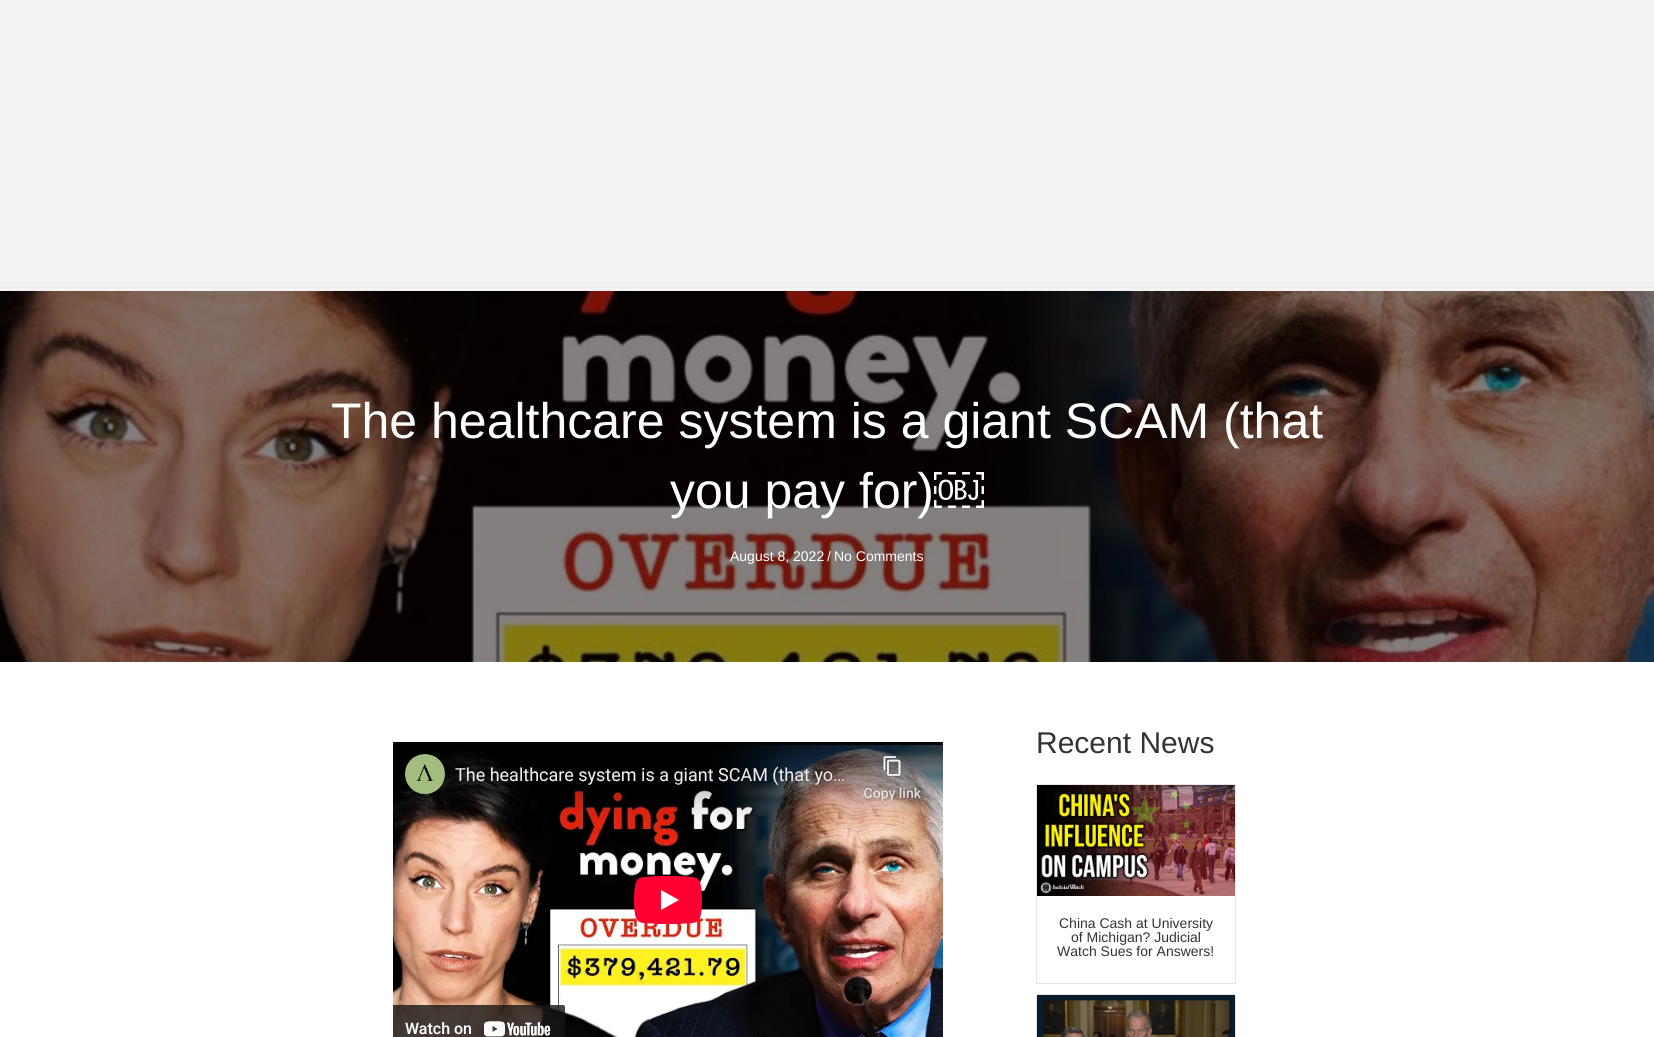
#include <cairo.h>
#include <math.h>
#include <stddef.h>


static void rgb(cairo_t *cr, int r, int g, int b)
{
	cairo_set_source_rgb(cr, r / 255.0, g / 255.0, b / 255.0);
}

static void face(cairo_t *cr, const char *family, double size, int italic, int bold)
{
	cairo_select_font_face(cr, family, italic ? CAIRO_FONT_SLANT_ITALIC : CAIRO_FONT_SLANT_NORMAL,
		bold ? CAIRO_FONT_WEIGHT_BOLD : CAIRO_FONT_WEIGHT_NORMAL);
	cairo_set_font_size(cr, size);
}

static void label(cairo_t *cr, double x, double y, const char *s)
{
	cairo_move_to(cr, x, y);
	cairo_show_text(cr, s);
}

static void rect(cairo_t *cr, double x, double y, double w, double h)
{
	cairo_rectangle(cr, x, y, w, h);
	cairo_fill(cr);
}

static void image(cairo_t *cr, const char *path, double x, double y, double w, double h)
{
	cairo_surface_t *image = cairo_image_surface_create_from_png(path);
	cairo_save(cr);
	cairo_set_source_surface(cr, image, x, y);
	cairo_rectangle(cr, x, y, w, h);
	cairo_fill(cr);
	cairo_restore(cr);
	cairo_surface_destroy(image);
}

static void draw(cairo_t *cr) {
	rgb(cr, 242, 242, 242);
	cairo_paint(cr);
	rgb(cr, 238, 238, 238);
	cairo_new_path(cr);
	cairo_move_to(cr, 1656, 288);
	cairo_line_to(cr, -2, 288);
	cairo_line_to(cr, 0, 286);
	cairo_line_to(cr, 1654, 286);
	cairo_close_path(cr);
	cairo_fill(cr);
	rgb(cr, 255, 255, 255);
	rect(cr, 0, 662, 1654, 375);
	image(cr, "image0.png", 0, 291, 1654, 371);
	face(cr, "Liberation Sans", 50, 0, 0);
	label(cr, 331, 438, "The healthcare system is a giant SCAM (that");
	label(cr, 670, 508, "you pay for)￼");
	face(cr, "Liberation Sans", 14, 0, 0);
	label(cr, 730, 561, "August 8, 2022");
	label(cr, 827, 561, "/");
	label(cr, 834, 561, "No Comments");
	image(cr, "image1.png", 393, 742, 550, 295);
	face(cr, "Liberation Sans", 30, 0, 0);
	rgb(cr, 51, 51, 51);
	label(cr, 1036, 753, "Recent News");
	cairo_rectangle(cr, 1036.5, 784.5, 199, 199);
	rgb(cr, 230, 230, 230);
	cairo_set_line_width(cr, 1);
	cairo_stroke(cr);
	image(cr, "image2.png", 1037, 785, 198, 111);
	face(cr, "Liberation Sans", 14, 0, 0);
	rgb(cr, 51, 51, 51);
	label(cr, 1059, 928, "China Cash at University");
	label(cr, 1071, 942, "of Michigan? Judicial");
	label(cr, 1057, 956, "Watch Sues for Answers!");
	cairo_rectangle(cr, 1036.5, 994.5, 199, 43);
	rgb(cr, 230, 230, 230);
	cairo_stroke(cr);
	image(cr, "image3.png", 1037, 995, 198, 42);
}

int main(void) {
	cairo_surface_t *surface = cairo_image_surface_create(CAIRO_FORMAT_RGB24, 1654, 1037);
	cairo_t *cr = cairo_create(surface);
	cairo_font_options_t *options = cairo_font_options_create();
	cairo_font_options_set_hint_metrics(options, CAIRO_HINT_METRICS_OFF);
	cairo_font_options_set_hint_style(options, CAIRO_HINT_STYLE_NONE);
	cairo_set_font_options(cr, options);
	cairo_set_miter_limit(cr, 4);
	draw(cr);
	cairo_surface_write_to_png(surface, "render.png");
	cairo_font_options_destroy(options);
	cairo_destroy(cr);
	cairo_surface_destroy(surface);
	return 0;
}
